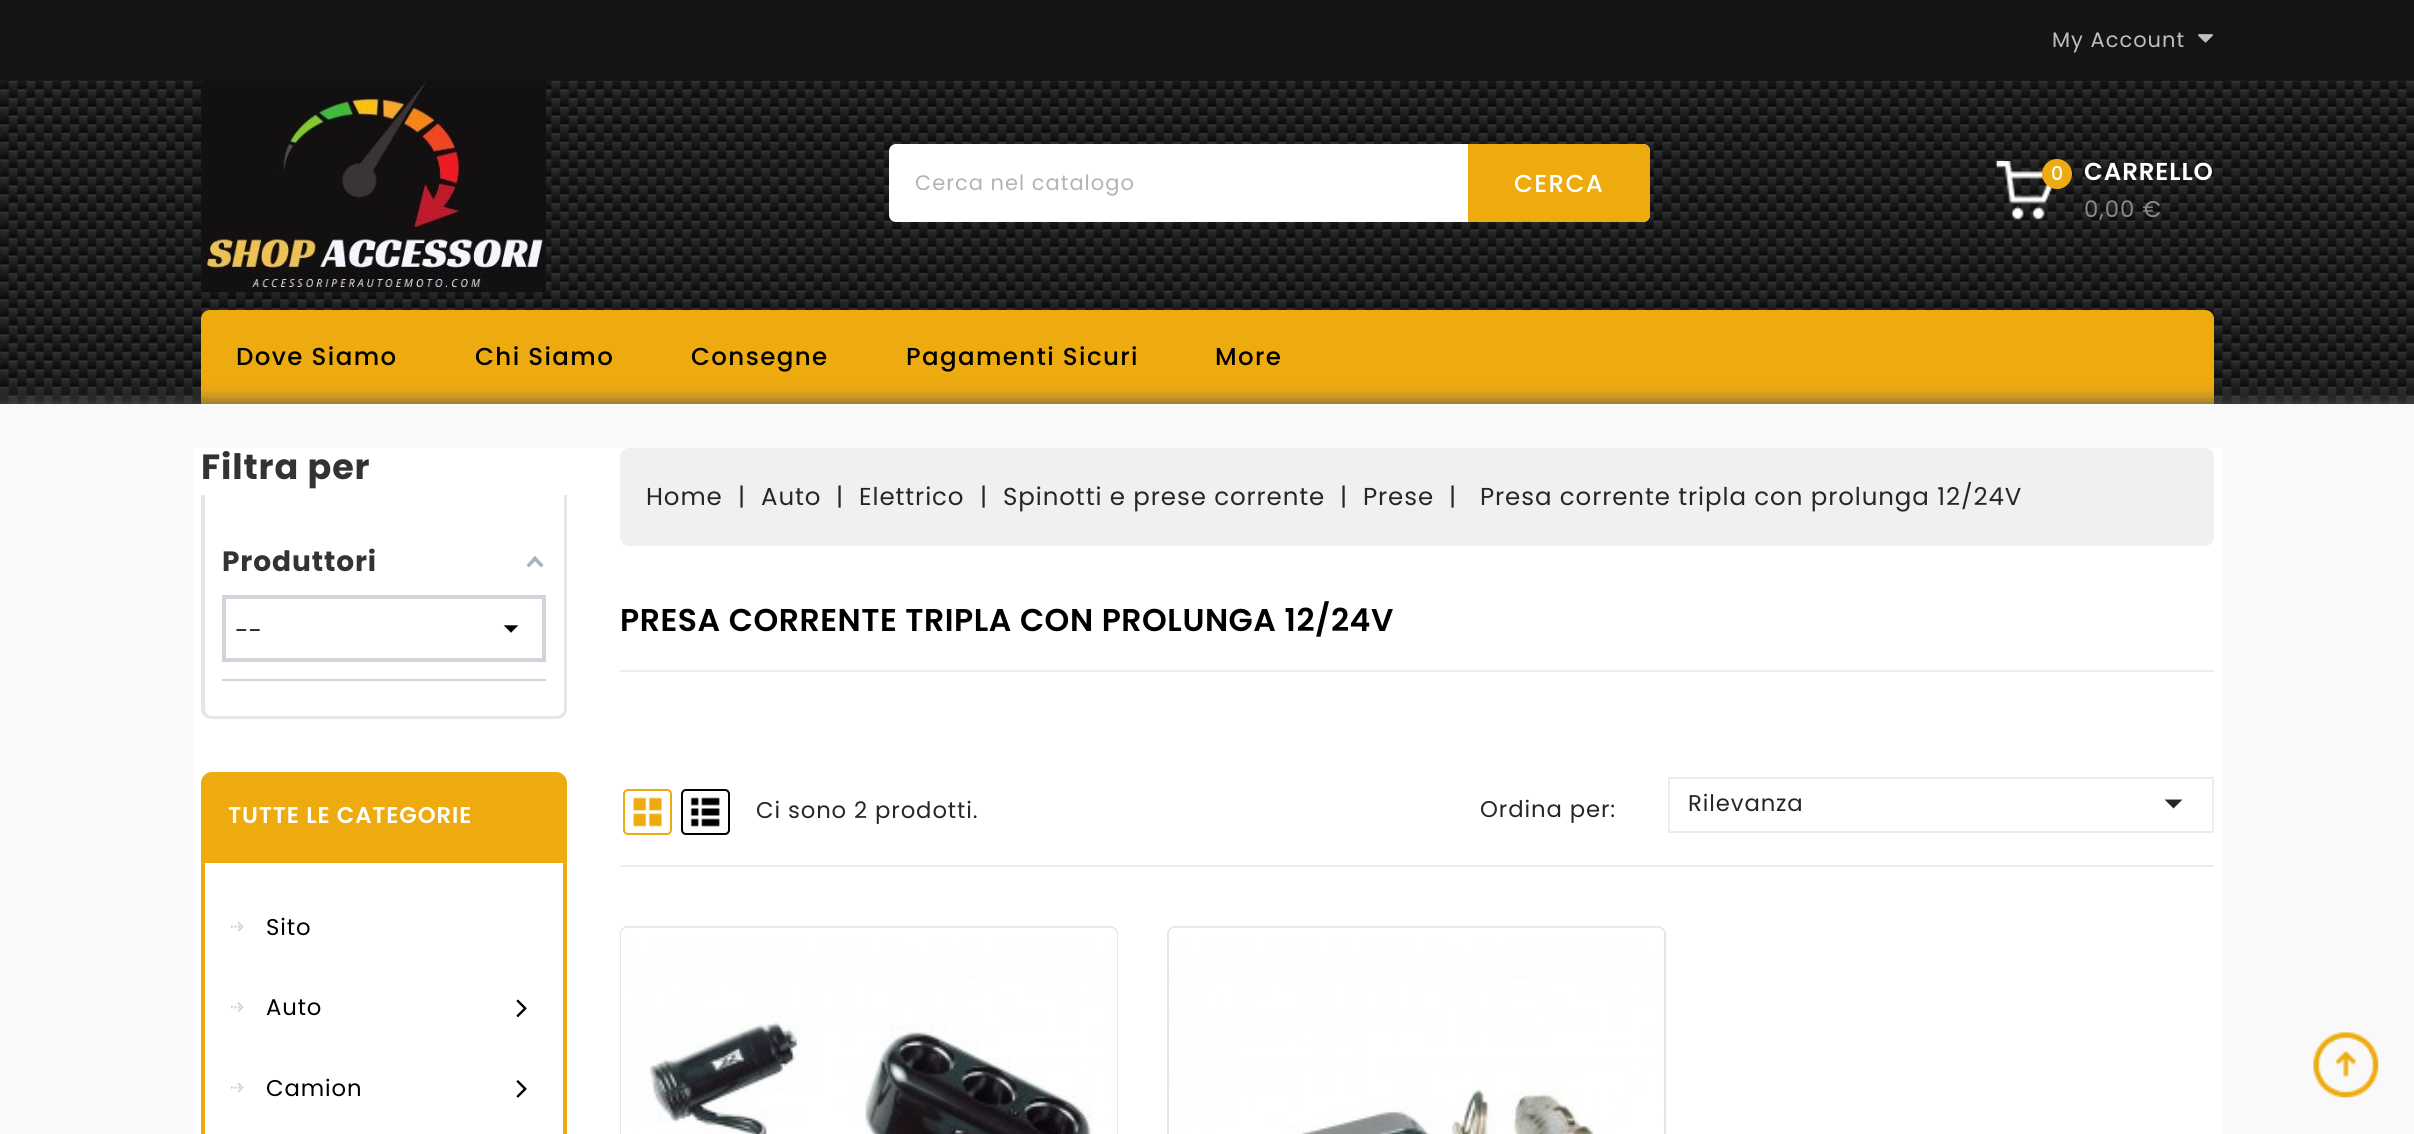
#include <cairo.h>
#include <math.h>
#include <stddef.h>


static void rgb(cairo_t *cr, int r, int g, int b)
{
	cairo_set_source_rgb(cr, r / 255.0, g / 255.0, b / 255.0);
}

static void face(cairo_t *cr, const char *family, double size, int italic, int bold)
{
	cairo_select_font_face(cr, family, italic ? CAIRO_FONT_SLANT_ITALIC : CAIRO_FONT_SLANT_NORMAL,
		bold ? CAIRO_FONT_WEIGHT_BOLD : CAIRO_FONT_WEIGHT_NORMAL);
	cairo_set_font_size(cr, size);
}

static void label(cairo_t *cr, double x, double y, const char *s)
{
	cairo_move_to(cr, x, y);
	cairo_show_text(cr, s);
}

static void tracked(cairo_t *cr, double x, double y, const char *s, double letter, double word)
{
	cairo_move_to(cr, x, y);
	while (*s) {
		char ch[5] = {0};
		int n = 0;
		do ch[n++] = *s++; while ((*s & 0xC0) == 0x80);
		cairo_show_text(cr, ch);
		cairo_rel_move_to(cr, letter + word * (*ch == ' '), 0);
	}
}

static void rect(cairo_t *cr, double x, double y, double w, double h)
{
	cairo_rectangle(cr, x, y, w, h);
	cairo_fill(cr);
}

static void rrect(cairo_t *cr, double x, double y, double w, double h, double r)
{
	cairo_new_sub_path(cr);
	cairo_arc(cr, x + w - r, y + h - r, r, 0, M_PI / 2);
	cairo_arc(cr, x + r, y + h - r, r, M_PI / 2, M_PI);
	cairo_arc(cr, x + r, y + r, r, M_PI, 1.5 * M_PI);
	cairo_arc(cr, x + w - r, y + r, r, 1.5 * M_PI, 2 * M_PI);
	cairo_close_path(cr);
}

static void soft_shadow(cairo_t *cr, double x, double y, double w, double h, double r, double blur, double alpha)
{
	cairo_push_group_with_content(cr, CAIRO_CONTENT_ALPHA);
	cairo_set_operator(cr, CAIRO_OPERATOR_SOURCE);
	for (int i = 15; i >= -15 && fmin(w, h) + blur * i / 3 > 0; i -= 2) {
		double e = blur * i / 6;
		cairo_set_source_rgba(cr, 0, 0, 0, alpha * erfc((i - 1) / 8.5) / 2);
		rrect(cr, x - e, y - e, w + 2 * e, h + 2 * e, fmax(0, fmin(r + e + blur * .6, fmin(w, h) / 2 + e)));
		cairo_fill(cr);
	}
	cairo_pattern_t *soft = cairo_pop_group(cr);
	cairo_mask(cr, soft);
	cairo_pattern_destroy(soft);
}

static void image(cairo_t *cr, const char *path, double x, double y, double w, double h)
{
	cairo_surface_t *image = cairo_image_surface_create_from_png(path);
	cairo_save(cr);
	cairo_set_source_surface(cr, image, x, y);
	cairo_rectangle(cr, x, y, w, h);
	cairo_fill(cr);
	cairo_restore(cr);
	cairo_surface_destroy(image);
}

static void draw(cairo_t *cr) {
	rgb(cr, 20, 20, 20);
	cairo_paint(cr);
	image(cr, "image1.png", 0, 80, 2414, 324);
	rgb(cr, 20, 20, 20);
	rect(cr, 193, 80, 2030, 1);
	face(cr, "Poppins", 21, 0, 0);
	rgb(cr, 191, 191, 191);
	tracked(cr, 2052, 47, "My Account", 1, 0);
	image(cr, "image0.png", 2198, 34, 15, 9);
	image(cr, "image2.png", 201, 80, 345, 213);
	rgb(cr, 255, 255, 255);
	rrect(cr, 889, 144, 761, 78, 7);
	cairo_fill(cr);
	rgb(cr, 179, 179, 179);
	tracked(cr, 915, 190, "Cerca nel catalogo", 1, 0);
	rgb(cr, 238, 171, 16);
	cairo_new_path(cr);
	cairo_move_to(cr, 1468, 144);
	cairo_line_to(cr, 1643, 144);
	cairo_curve_to(cr, 1647, 144, 1650, 147, 1650, 151);
	cairo_line_to(cr, 1650, 215);
	cairo_curve_to(cr, 1650, 219, 1647, 222, 1643, 222);
	cairo_line_to(cr, 1468, 222);
	cairo_close_path(cr);
	cairo_fill(cr);
	face(cr, "Poppins Medium", 24.5, 0, 0);
	rgb(cr, 255, 255, 255);
	tracked(cr, 1514, 192, "CERCA", 1.4, 0);
	image(cr, "image3.png", 1996, 161, 57, 59);
	rgb(cr, 238, 171, 16);
	cairo_arc(cr, 2057, 174, 15, 0, 2 * M_PI);
	cairo_fill(cr);
	face(cr, "Poppins Medium", 19, 0, 0);
	rgb(cr, 255, 255, 255);
	tracked(cr, 2051, 180, "0", 0.9, 0);
	face(cr, "Poppins SemiBold", 24.5, 0, 0);
	tracked(cr, 2084, 180, "CARRELLO", 0.9, 0);
	face(cr, "Poppins", 22.75, 0, 0);
	rgb(cr, 136, 136, 136);
	tracked(cr, 2084, 217, "0,00 €", 1, 0);
	rgb(cr, 238, 171, 16);
	cairo_new_path(cr);
	cairo_move_to(cr, 210, 310);
	cairo_line_to(cr, 2205, 310);
	cairo_curve_to(cr, 2210, 310, 2214, 314, 2214, 319);
	cairo_line_to(cr, 2214, 404);
	cairo_line_to(cr, 201, 404);
	cairo_line_to(cr, 201, 319);
	cairo_curve_to(cr, 201, 314, 205, 310, 210, 310);
	cairo_close_path(cr);
	cairo_fill(cr);
	face(cr, "Poppins Medium", 24.5, 0, 0);
	rgb(cr, 0, 0, 0);
	tracked(cr, 236, 365, "Dove Siamo", 1.4, 0);
	tracked(cr, 475, 365, "Chi Siamo", 1.4, 0);
	tracked(cr, 691, 365, "Consegne", 1.4, 0);
	tracked(cr, 906, 365, "Pagamenti Sicuri", 1.4, 0);
	tracked(cr, 1215, 365, "More", 1.4, 0);
	rgb(cr, 85, 85, 85);
	soft_shadow(cr, -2, 403, 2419, 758, 0, 9, 1);
	rgb(cr, 249, 249, 249);
	rect(cr, 0, 404, 2414, 730);
	rgb(cr, 255, 255, 255);
	rect(cr, 193, 448, 2030, 686);
	face(cr, "Poppins", 35, 0, 1);
	rgb(cr, 51, 51, 51);
	tracked(cr, 201, 479, "Filtra per", 0.9, 0);
	rgb(cr, 230, 230, 230);
	cairo_set_fill_rule(cr, CAIRO_FILL_RULE_EVEN_ODD);
	cairo_new_path(cr);
	cairo_move_to(cr, 201, 495);
	cairo_line_to(cr, 567, 495);
	cairo_line_to(cr, 567, 709);
	cairo_curve_to(cr, 567, 715, 562, 719, 556, 719);
	cairo_line_to(cr, 212, 719);
	cairo_curve_to(cr, 206, 719, 201, 715, 201, 709);
	cairo_close_path(cr);
	cairo_move_to(cr, 205, 495);
	cairo_line_to(cr, 564, 495);
	cairo_line_to(cr, 564, 709);
	cairo_curve_to(cr, 564, 713, 560, 716, 556, 716);
	cairo_line_to(cr, 212, 716);
	cairo_curve_to(cr, 208, 716, 205, 713, 205, 709);
	cairo_close_path(cr);
	cairo_fill(cr);
	rgb(cr, 208, 213, 219);
	rect(cr, 222, 679, 324, 2);
	face(cr, "Poppins", 28, 0, 1);
	rgb(cr, 51, 51, 51);
	tracked(cr, 222, 571, "Produttori", 0.9, 0);
	rgb(cr, 170, 178, 189);
	cairo_set_fill_rule(cr, CAIRO_FILL_RULE_WINDING);
	cairo_new_path(cr);
	cairo_move_to(cr, 535, 556);
	cairo_line_to(cr, 543.5, 565);
	cairo_line_to(cr, 541, 567.5);
	cairo_line_to(cr, 532.5, 558.5);
	cairo_close_path(cr);
	cairo_fill(cr);
	cairo_new_path(cr);
	cairo_move_to(cr, 535, 556);
	cairo_line_to(cr, 537.5, 558.5);
	cairo_line_to(cr, 529, 567.5);
	cairo_line_to(cr, 526.5, 565);
	cairo_close_path(cr);
	cairo_fill(cr);
	image(cr, "image4.png", 503, 625, 16, 8);
	cairo_rectangle(cr, 224, 597, 320, 63);
	rgb(cr, 208, 213, 219);
	cairo_set_line_width(cr, 4);
	cairo_stroke(cr);
	face(cr, "Poppins", 24.5, 0, 0);
	rgb(cr, 38, 38, 38);
	label(cr, 235, 639, "--");
	rgb(cr, 238, 171, 16);
	cairo_new_path(cr);
	cairo_move_to(cr, 212, 772);
	cairo_line_to(cr, 556, 772);
	cairo_curve_to(cr, 562, 772, 567, 777, 567, 783);
	cairo_line_to(cr, 567, 859);
	cairo_line_to(cr, 201, 859);
	cairo_line_to(cr, 201, 783);
	cairo_curve_to(cr, 201, 777, 206, 772, 212, 772);
	cairo_close_path(cr);
	cairo_fill(cr);
	face(cr, "Poppins SemiBold", 22.75, 0, 0);
	rgb(cr, 255, 255, 255);
	tracked(cr, 228, 823, "TUTTE LE CATEGORIE", 0.9, 0);
	cairo_rectangle(cr, 203, 861, 362, 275);
	rgb(cr, 238, 171, 16);
	cairo_stroke(cr);
	image(cr, "image5.png", 231, 922, 13, 10);
	face(cr, "Poppins", 22.75, 0, 0);
	rgb(cr, 0, 0, 0);
	tracked(cr, 266, 935, "Sito", 0.9, 0);
	image(cr, "image6.png", 231, 1002, 13, 10);
	tracked(cr, 266, 1015, "Auto", 0.9, 0);
	image(cr, "image7.png", 516, 999, 11, 19);
	image(cr, "image5.png", 231, 1083, 13, 10);
	tracked(cr, 266, 1096, "Camion", 0.9, 0);
	image(cr, "image8.png", 516, 1080, 11, 18);
	rgb(cr, 240, 240, 240);
	rrect(cr, 620, 448, 1594, 98, 9);
	cairo_fill(cr);
	face(cr, "Poppins", 24.5, 0, 0);
	rgb(cr, 38, 38, 38);
	tracked(cr, 646, 505, "Home", 0.9, 0);
	tracked(cr, 738, 505, "|", 0.9, 0);
	tracked(cr, 761, 505, "Auto", 0.9, 0);
	tracked(cr, 836, 505, "|", 0.9, 0);
	tracked(cr, 859, 505, "Elettrico", 0.9, 0);
	tracked(cr, 980, 505, "|", 0.9, 0);
	tracked(cr, 1003, 505, "Spinotti e prese corrente", 0.9, 0);
	tracked(cr, 1340, 505, "|", 0.9, 0);
	tracked(cr, 1363, 505, "Prese", 0.9, 0);
	tracked(cr, 1449, 505, "|", 0.9, 0);
	tracked(cr, 1480, 505, "Presa corrente tripla con prolunga 12/24V", 0.9, 0);
	rgb(cr, 237, 237, 237);
	rect(cr, 620, 670, 1594, 2);
	face(cr, "Poppins SemiBold", 31.5, 0, 0);
	rgb(cr, 0, 0, 0);
	tracked(cr, 620, 631, "PRESA CORRENTE TRIPLA CON PROLUNGA 12/24V", 0.55, 0);
	rgb(cr, 237, 237, 237);
	rect(cr, 620, 865, 1594, 2);
	rrect(cr, 624, 790, 47, 44, 4);
	rgb(cr, 238, 171, 16);
	cairo_set_line_width(cr, 2);
	cairo_stroke(cr);
	image(cr, "image9.png", 633, 797, 29, 30);
	rrect(cr, 682, 790, 47, 44, 4);
	rgb(cr, 0, 0, 0);
	cairo_stroke(cr);
	image(cr, "image10.png", 690, 797, 30, 30);
	face(cr, "Poppins", 22.75, 0, 0);
	rgb(cr, 38, 38, 38);
	tracked(cr, 756, 818, "Ci sono 2 prodotti.", 0.9, 0);
	tracked(cr, 1480, 817, "Ordina per:", 0.9, 0);
	cairo_rectangle(cr, 1669, 778, 544, 54);
	rgb(cr, 237, 237, 237);
	cairo_stroke(cr);
	rgb(cr, 38, 38, 38);
	tracked(cr, 1688, 811, "Rilevanza", 0.9, 0);
	cairo_new_path(cr);
	cairo_move_to(cr, 2164.5, 799.5);
	cairo_line_to(cr, 2182.5, 799.5);
	cairo_line_to(cr, 2173.5, 808.5);
	cairo_close_path(cr);
	cairo_fill(cr);
	rgb(cr, 229, 229, 229);
	cairo_set_fill_rule(cr, CAIRO_FILL_RULE_EVEN_ODD);
	cairo_new_path(cr);
	cairo_move_to(cr, 628, 926);
	cairo_line_to(cr, 1110, 926);
	cairo_curve_to(cr, 1114, 926, 1118, 930, 1118, 934);
	cairo_line_to(cr, 1118, 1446);
	cairo_line_to(cr, 620, 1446);
	cairo_line_to(cr, 620, 934);
	cairo_curve_to(cr, 620, 930, 623, 926, 628, 926);
	cairo_close_path(cr);
	cairo_move_to(cr, 628, 928);
	cairo_line_to(cr, 1110, 928);
	cairo_curve_to(cr, 1113, 928, 1116, 931, 1116, 934);
	cairo_line_to(cr, 1116, 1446);
	cairo_line_to(cr, 621, 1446);
	cairo_line_to(cr, 621, 934);
	cairo_curve_to(cr, 621, 931, 624, 928, 628, 928);
	cairo_close_path(cr);
	cairo_fill(cr);
	rgb(cr, 255, 255, 255);
	cairo_new_path(cr);
	cairo_move_to(cr, 628, 928);
	cairo_line_to(cr, 1110, 928);
	cairo_curve_to(cr, 1114, 928, 1117, 931, 1117, 935);
	cairo_line_to(cr, 1117, 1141);
	cairo_line_to(cr, 621, 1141);
	cairo_line_to(cr, 621, 935);
	cairo_curve_to(cr, 621, 931, 624, 928, 628, 928);
	cairo_close_path(cr);
	cairo_fill(cr);
	image(cr, "image11.png", 623, 927, 492, 207);
	rgb(cr, 229, 229, 229);
	cairo_new_path(cr);
	cairo_move_to(cr, 1176, 926);
	cairo_line_to(cr, 1657, 926);
	cairo_curve_to(cr, 1662, 926, 1666, 930, 1666, 934);
	cairo_line_to(cr, 1666, 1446);
	cairo_line_to(cr, 1167, 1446);
	cairo_line_to(cr, 1167, 934);
	cairo_curve_to(cr, 1167, 930, 1171, 926, 1176, 926);
	cairo_close_path(cr);
	cairo_move_to(cr, 1176, 928);
	cairo_line_to(cr, 1657, 928);
	cairo_curve_to(cr, 1661, 928, 1664, 931, 1664, 934);
	cairo_line_to(cr, 1664, 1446);
	cairo_line_to(cr, 1169, 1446);
	cairo_line_to(cr, 1169, 934);
	cairo_curve_to(cr, 1169, 931, 1172, 928, 1176, 928);
	cairo_close_path(cr);
	cairo_fill(cr);
	image(cr, "image12.png", 1169, 927, 495, 207);
	image(cr, "image13.png", 2313, 1032, 66, 66);
}

int main(void) {
	cairo_surface_t *surface = cairo_image_surface_create(CAIRO_FORMAT_RGB24, 2414, 1134);
	cairo_t *cr = cairo_create(surface);
	cairo_font_options_t *options = cairo_font_options_create();
	cairo_font_options_set_hint_metrics(options, CAIRO_HINT_METRICS_OFF);
	cairo_font_options_set_hint_style(options, CAIRO_HINT_STYLE_NONE);
	cairo_set_font_options(cr, options);
	cairo_set_miter_limit(cr, 4);
	draw(cr);
	cairo_surface_write_to_png(surface, "render.png");
	cairo_font_options_destroy(options);
	cairo_destroy(cr);
	cairo_surface_destroy(surface);
	return 0;
}
